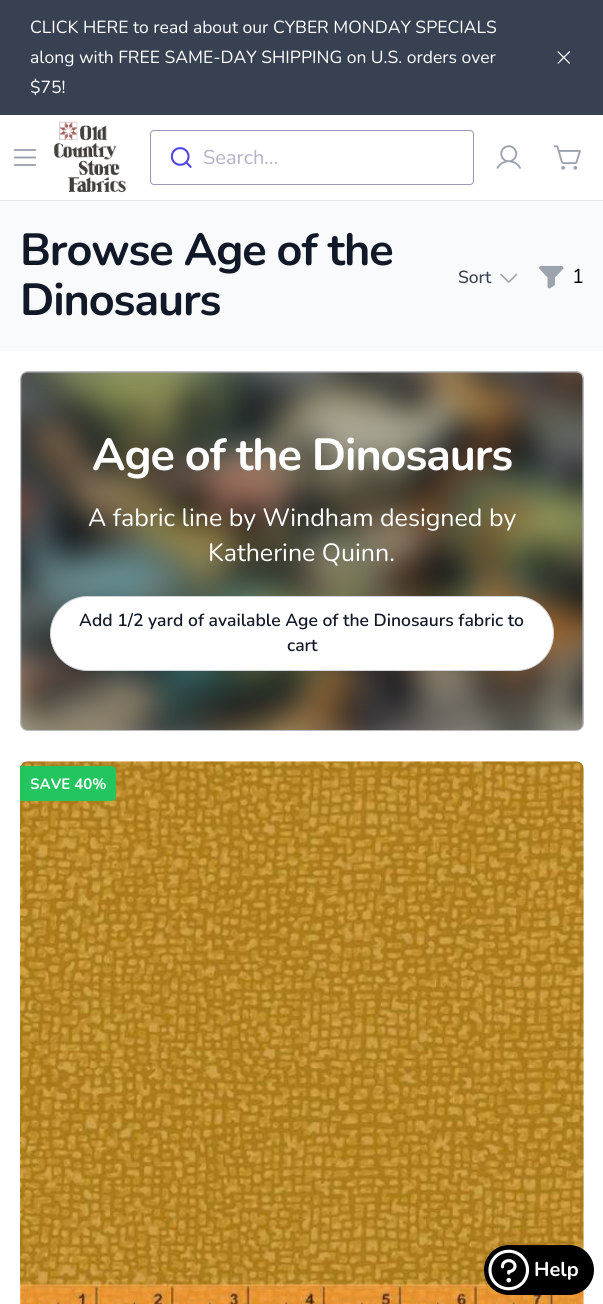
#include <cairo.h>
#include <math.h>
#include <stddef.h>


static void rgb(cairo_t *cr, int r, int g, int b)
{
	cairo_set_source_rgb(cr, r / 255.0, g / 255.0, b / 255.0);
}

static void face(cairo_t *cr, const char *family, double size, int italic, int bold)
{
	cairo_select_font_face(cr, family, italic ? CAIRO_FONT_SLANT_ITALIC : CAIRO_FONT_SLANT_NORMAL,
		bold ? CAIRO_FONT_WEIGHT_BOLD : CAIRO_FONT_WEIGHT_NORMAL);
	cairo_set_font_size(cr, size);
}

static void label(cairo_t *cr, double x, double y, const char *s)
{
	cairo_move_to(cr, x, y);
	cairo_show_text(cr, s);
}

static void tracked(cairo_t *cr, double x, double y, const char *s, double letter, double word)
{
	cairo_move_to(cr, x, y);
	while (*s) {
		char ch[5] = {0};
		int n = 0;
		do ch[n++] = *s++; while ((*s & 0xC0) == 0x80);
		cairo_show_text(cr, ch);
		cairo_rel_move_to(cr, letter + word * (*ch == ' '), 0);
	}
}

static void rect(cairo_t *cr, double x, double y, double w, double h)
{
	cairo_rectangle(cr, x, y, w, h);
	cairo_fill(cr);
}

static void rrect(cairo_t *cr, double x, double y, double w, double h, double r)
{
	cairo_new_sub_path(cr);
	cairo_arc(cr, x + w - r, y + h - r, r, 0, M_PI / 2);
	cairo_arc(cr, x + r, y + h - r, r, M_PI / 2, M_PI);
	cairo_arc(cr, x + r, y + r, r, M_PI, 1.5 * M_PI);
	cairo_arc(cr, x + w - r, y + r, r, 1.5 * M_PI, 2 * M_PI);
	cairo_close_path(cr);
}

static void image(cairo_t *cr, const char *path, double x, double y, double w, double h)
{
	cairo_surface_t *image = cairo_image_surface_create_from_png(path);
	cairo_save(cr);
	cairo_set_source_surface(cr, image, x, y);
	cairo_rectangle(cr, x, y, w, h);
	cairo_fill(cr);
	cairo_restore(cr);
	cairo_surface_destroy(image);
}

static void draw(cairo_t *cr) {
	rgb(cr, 255, 255, 255);
	cairo_paint(cr);
	rgb(cr, 55, 65, 81);
	rect(cr, 0, 0, 603, 115);
	face(cr, "Nunito", 17.5, 0, 0);
	rgb(cr, 255, 255, 255);
	label(cr, 30, 33, "CLICK HERE to read about our CYBER MONDAY SPECIALS");
	label(cr, 30, 63, "along with FREE SAME-DAY SHIPPING on U.S. orders over");
	label(cr, 30, 93, "$75!");
	image(cr, "image0.png", 557, 51, 13, 13);
	rgb(cr, 229, 231, 235);
	rect(cr, 0, 200, 603, 1);
	image(cr, "image1.png", 13, 149, 24, 17);
	image(cr, "image2.png", 54, 121, 73, 72);
	rrect(cr, 150.5, 130.5, 323, 54, 3.5);
	rgb(cr, 153, 152, 181);
	cairo_set_line_width(cr, 1);
	cairo_stroke(cr);
	image(cr, "image3.png", 170, 147, 22, 21);
	face(cr, "Nunito", 20, 0, 0);
	rgb(cr, 179, 178, 200);
	label(cr, 203, 164, "Search...");
	image(cr, "image4.png", 496, 145, 25, 24);
	image(cr, "image5.png", 554, 145, 27, 25);
	rgb(cr, 249, 250, 251);
	rect(cr, 0, 201, 603, 150);
	face(cr, "Nunito", 45, 0, 1);
	rgb(cr, 17, 24, 39);
	tracked(cr, 20, 265, "Browse Age of the", -1.1, 0);
	tracked(cr, 20, 315, "Dinosaurs", -1.1, 0);
	face(cr, "Nunito Medium", 17.5, 0, 0);
	rgb(cr, 55, 65, 81);
	label(cr, 458, 283, "Sort");
	image(cr, "image6.png", 500, 273, 18, 10);
	image(cr, "image7.png", 539, 265, 25, 24);
	face(cr, "Nunito", 20, 0, 0);
	rgb(cr, 0, 0, 0);
	label(cr, 572, 283, "1");
	image(cr, "image8.png", 21, 372, 562, 358);
	cairo_set_source_rgba(cr, 0.067, 0.094, 0.153, 0.3);
	rrect(cr, 20, 371, 564, 360, 8);
	cairo_fill(cr);
	face(cr, "Nunito", 45, 0, 1);
	rgb(cr, 255, 255, 255);
	tracked(cr, 92, 470, "Age of the Dinosaurs", -1.1, 0);
	face(cr, "Nunito", 25, 0, 0);
	label(cr, 88, 526, "A fabric line by Windham designed by");
	label(cr, 208, 561, "Katherine Quinn.");
	rrect(cr, 50.5, 596.5, 503, 74, 37);
	cairo_fill_preserve(cr);
	rgb(cr, 209, 213, 219);
	cairo_stroke(cr);
	face(cr, "Nunito SemiBold", 17.5, 0, 0);
	rgb(cr, 17, 24, 39);
	label(cr, 79, 626, "Add 1/2 yard of available Age of the Dinosaurs fabric to");
	label(cr, 287, 651, "cart");
	image(cr, "image9.png", 20, 761, 564, 543);
	rgb(cr, 34, 197, 94);
	cairo_new_path(cr);
	cairo_move_to(cr, 20, 766);
	cairo_line_to(cr, 111, 766);
	cairo_curve_to(cr, 114, 766, 116, 768, 116, 771);
	cairo_line_to(cr, 116, 796);
	cairo_curve_to(cr, 116, 799, 114, 801, 111, 801);
	cairo_line_to(cr, 20, 801);
	cairo_close_path(cr);
	cairo_fill(cr);
	face(cr, "Nunito", 15, 0, 1);
	rgb(cr, 255, 255, 255);
	label(cr, 30, 789, "SAVE 40%");
	rgb(cr, 0, 0, 0);
	rrect(cr, 484, 1245, 110, 50, 25);
	cairo_fill(cr);
	image(cr, "image10.png", 488, 1249, 42, 42);
	face(cr, "Nunito", 20, 0, 1);
	rgb(cr, 255, 255, 255);
	label(cr, 534, 1276, "Help");
}

int main(void) {
	cairo_surface_t *surface = cairo_image_surface_create(CAIRO_FORMAT_RGB24, 603, 1304);
	cairo_t *cr = cairo_create(surface);
	cairo_font_options_t *options = cairo_font_options_create();
	cairo_font_options_set_hint_metrics(options, CAIRO_HINT_METRICS_OFF);
	cairo_font_options_set_hint_style(options, CAIRO_HINT_STYLE_NONE);
	cairo_set_font_options(cr, options);
	cairo_set_miter_limit(cr, 4);
	draw(cr);
	cairo_surface_write_to_png(surface, "render.png");
	cairo_font_options_destroy(options);
	cairo_destroy(cr);
	cairo_surface_destroy(surface);
	return 0;
}
